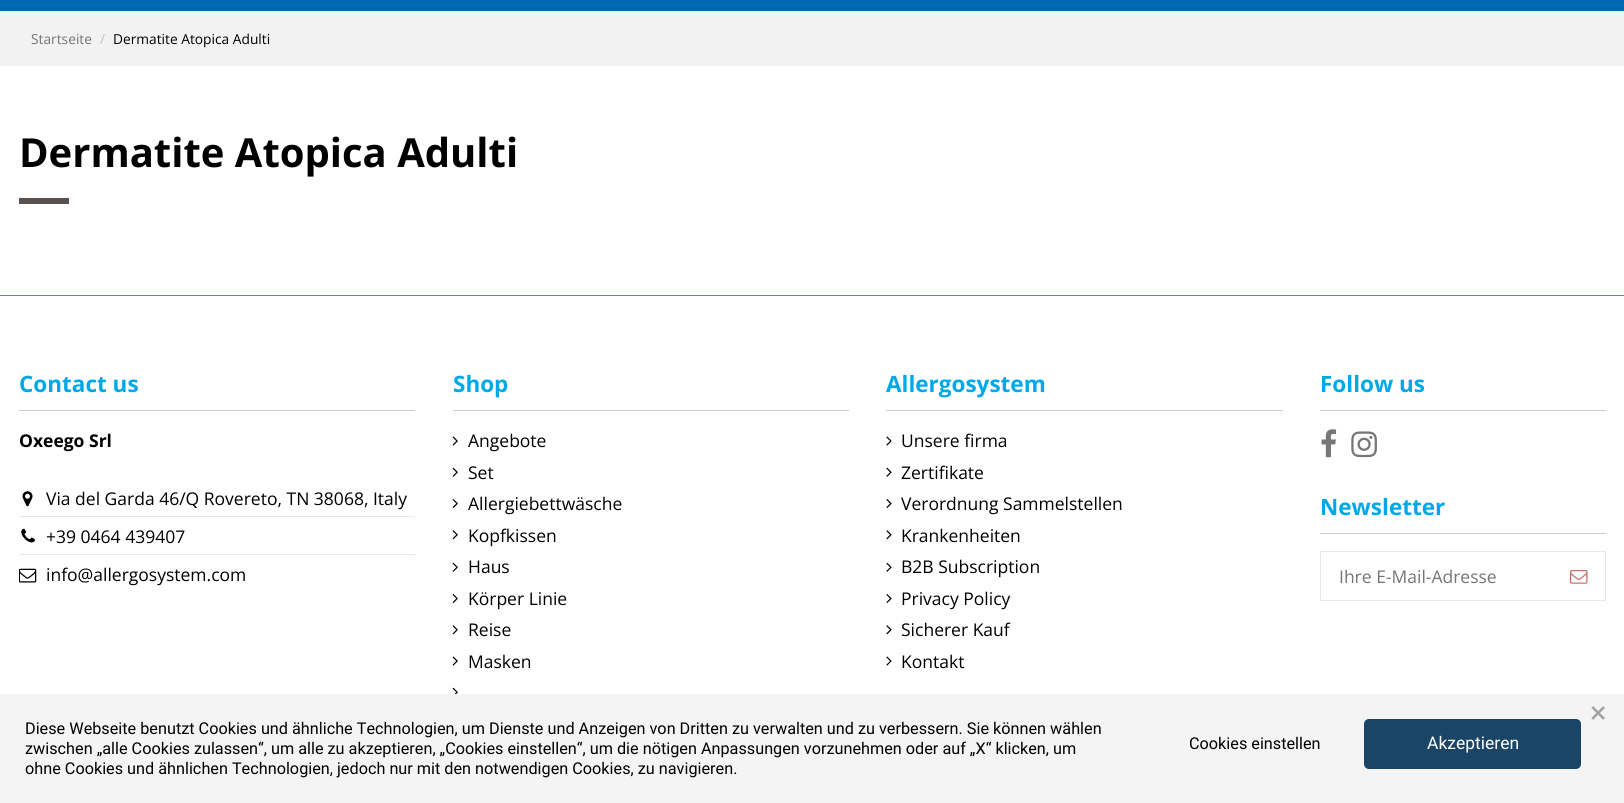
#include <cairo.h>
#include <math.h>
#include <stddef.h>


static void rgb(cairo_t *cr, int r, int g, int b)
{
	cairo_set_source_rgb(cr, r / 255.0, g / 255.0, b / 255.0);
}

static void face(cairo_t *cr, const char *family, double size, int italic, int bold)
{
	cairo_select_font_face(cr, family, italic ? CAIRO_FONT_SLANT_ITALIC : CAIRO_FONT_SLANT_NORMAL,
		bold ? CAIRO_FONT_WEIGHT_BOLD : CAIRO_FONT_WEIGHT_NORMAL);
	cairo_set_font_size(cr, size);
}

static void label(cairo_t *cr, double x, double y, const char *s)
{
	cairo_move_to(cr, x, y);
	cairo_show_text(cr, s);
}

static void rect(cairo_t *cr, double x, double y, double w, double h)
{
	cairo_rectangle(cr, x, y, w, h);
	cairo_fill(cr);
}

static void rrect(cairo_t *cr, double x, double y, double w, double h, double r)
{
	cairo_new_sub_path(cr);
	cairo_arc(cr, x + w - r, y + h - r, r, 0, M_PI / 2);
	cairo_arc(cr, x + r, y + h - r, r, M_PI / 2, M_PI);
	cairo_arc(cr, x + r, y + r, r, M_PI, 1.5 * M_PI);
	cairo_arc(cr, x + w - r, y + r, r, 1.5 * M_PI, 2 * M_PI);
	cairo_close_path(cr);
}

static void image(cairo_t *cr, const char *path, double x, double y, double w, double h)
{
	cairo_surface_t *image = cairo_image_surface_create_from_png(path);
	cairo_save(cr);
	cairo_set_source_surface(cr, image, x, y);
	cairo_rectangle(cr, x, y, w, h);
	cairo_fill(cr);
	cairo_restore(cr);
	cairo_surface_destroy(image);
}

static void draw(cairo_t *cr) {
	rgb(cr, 255, 255, 255);
	cairo_paint(cr);
	rgb(cr, 0, 105, 180);
	rect(cr, 0, 0, 1624, 11);
	rgb(cr, 242, 242, 242);
	rect(cr, 0, 11, 1624, 55);
	face(cr, "Open Sans", 13.75, 0, 0);
	rgb(cr, 117, 117, 117);
	label(cr, 31, 44, "Startseite");
	rgb(cr, 192, 192, 192);
	label(cr, 100, 44, "/");
	rgb(cr, 0, 0, 0);
	label(cr, 113, 44, "Dermatite Atopica Adulti");
	face(cr, "Open Sans", 40, 0, 1);
	label(cr, 19, 167, "Dermatite Atopica Adulti");
	rgb(cr, 89, 80, 80);
	rect(cr, 19, 198, 50, 6);
	rgb(cr, 0, 168, 231);
	rect(cr, 0, 295, 1624, 1);
	rgb(cr, 204, 204, 204);
	rect(cr, 19, 410, 396, 1);
	face(cr, "Open Sans", 22.5, 0, 1);
	rgb(cr, 0, 168, 231);
	label(cr, 19, 392, "Contact us");
	face(cr, "Open Sans", 17.5, 0, 1);
	rgb(cr, 0, 0, 0);
	label(cr, 19, 447, "Oxeego Srl");
	image(cr, "image0.png", 22, 491, 11, 16);
	face(cr, "Open Sans", 17.5, 0, 0);
	label(cr, 46, 505, "Via del Garda 46/Q Rovereto, TN 38068, Italy");
	rgb(cr, 232, 232, 232);
	rect(cr, 19, 516, 396, 1);
	image(cr, "image1.png", 21, 528, 14, 15);
	rgb(cr, 0, 0, 0);
	label(cr, 46, 543, "+39 0464 439407");
	rgb(cr, 232, 232, 232);
	rect(cr, 19, 554, 396, 1);
	image(cr, "image2.png", 19, 568, 18, 15);
	rgb(cr, 0, 0, 0);
	label(cr, 46, 581, "info@allergosystem.com");
	rgb(cr, 204, 204, 204);
	rect(cr, 453, 410, 396, 1);
	face(cr, "Open Sans", 22.5, 0, 1);
	rgb(cr, 0, 168, 231);
	label(cr, 453, 392, "Shop");
	image(cr, "image3.png", 452, 436, 6, 10);
	face(cr, "Open Sans", 17.5, 0, 0);
	rgb(cr, 0, 0, 0);
	label(cr, 468, 447, "Angebote");
	image(cr, "image4.png", 452, 467, 6, 10);
	label(cr, 468, 479, "Set");
	image(cr, "image5.png", 452, 499, 6, 9);
	label(cr, 468, 510, "Allergiebettwäsche");
	image(cr, "image6.png", 452, 530, 6, 10);
	label(cr, 468, 542, "Kopfkissen");
	image(cr, "image4.png", 452, 562, 6, 10);
	label(cr, 468, 573, "Haus");
	image(cr, "image5.png", 452, 594, 6, 9);
	label(cr, 468, 605, "Körper Linie");
	image(cr, "image6.png", 452, 625, 6, 10);
	label(cr, 468, 636, "Reise");
	image(cr, "image3.png", 452, 656, 6, 10);
	label(cr, 468, 668, "Masken");
	image(cr, "image7.png", 452, 687, 6, 7);
	rgb(cr, 204, 204, 204);
	rect(cr, 886, 410, 397, 1);
	face(cr, "Open Sans", 22.5, 0, 1);
	rgb(cr, 0, 168, 231);
	label(cr, 886, 392, "Allergosystem");
	image(cr, "image8.png", 886, 436, 6, 10);
	face(cr, "Open Sans", 17.5, 0, 0);
	rgb(cr, 0, 0, 0);
	label(cr, 901, 447, "Unsere firma");
	image(cr, "image9.png", 886, 467, 6, 10);
	label(cr, 901, 479, "Zertifikate");
	image(cr, "image10.png", 886, 499, 6, 9);
	label(cr, 901, 510, "Verordnung Sammelstellen");
	image(cr, "image11.png", 886, 530, 6, 10);
	label(cr, 901, 542, "Krankenheiten");
	image(cr, "image9.png", 886, 562, 6, 10);
	label(cr, 901, 573, "B2B Subscription");
	image(cr, "image10.png", 886, 594, 6, 9);
	label(cr, 901, 605, "Privacy Policy");
	image(cr, "image11.png", 886, 625, 6, 10);
	label(cr, 901, 636, "Sicherer Kauf");
	image(cr, "image8.png", 886, 656, 6, 10);
	label(cr, 901, 668, "Kontakt");
	rgb(cr, 204, 204, 204);
	rect(cr, 1320, 410, 286, 1);
	face(cr, "Open Sans", 22.5, 0, 1);
	rgb(cr, 0, 168, 231);
	label(cr, 1320, 392, "Follow us");
	image(cr, "image12.png", 1321, 429, 16, 29);
	image(cr, "image13.png", 1351, 431, 26, 27);
	rgb(cr, 204, 204, 204);
	rect(cr, 1320, 533, 286, 1);
	rgb(cr, 0, 168, 231);
	label(cr, 1320, 515, "Newsletter");
	cairo_rectangle(cr, 1320.5, 551.5, 285, 49);
	rgb(cr, 232, 232, 232);
	cairo_set_line_width(cr, 1);
	cairo_stroke(cr);
	face(cr, "Open Sans", 17.5, 0, 0);
	rgb(cr, 117, 117, 117);
	label(cr, 1339, 583, "Ihre E-Mail-Adresse");
	image(cr, "image14.png", 1570, 570, 18, 14);
	rgb(cr, 244, 244, 244);
	rect(cr, 0, 694, 1624, 109);
	face(cr, "Roboto", 31, 0, 0);
	rgb(cr, 163, 163, 163);
	label(cr, 1590, 723, "×");
	face(cr, "Roboto", 16.25, 0, 0);
	rgb(cr, 0, 0, 0);
	label(cr, 25, 734, "Diese Webseite benutzt Cookies und ähnliche Technologien, um Dienste und Anzeigen von Dritten zu verwalten und zu verbessern. Sie können wählen");
	label(cr, 25, 754, "zwischen „alle Cookies zulassen“, um alle zu akzeptieren, „Cookies einstellen“, um die nötigen Anpassungen vorzunehmen oder auf „X“ klicken, um");
	label(cr, 25, 774, "ohne Cookies und ähnlichen Technologien, jedoch nur mit den notwendigen Cookies, zu navigieren.");
	label(cr, 1189, 749, "Cookies einstellen");
	rgb(cr, 27, 69, 102);
	rrect(cr, 1364, 719, 217, 50, 5);
	cairo_fill(cr);
	face(cr, "Roboto", 17.5, 0, 0);
	rgb(cr, 255, 255, 255);
	label(cr, 1427, 749, "Akzeptieren");
}

int main(void) {
	cairo_surface_t *surface = cairo_image_surface_create(CAIRO_FORMAT_RGB24, 1624, 803);
	cairo_t *cr = cairo_create(surface);
	cairo_font_options_t *options = cairo_font_options_create();
	cairo_font_options_set_hint_metrics(options, CAIRO_HINT_METRICS_OFF);
	cairo_font_options_set_hint_style(options, CAIRO_HINT_STYLE_NONE);
	cairo_set_font_options(cr, options);
	cairo_set_miter_limit(cr, 4);
	draw(cr);
	cairo_surface_write_to_png(surface, "render.png");
	cairo_font_options_destroy(options);
	cairo_destroy(cr);
	cairo_surface_destroy(surface);
	return 0;
}
